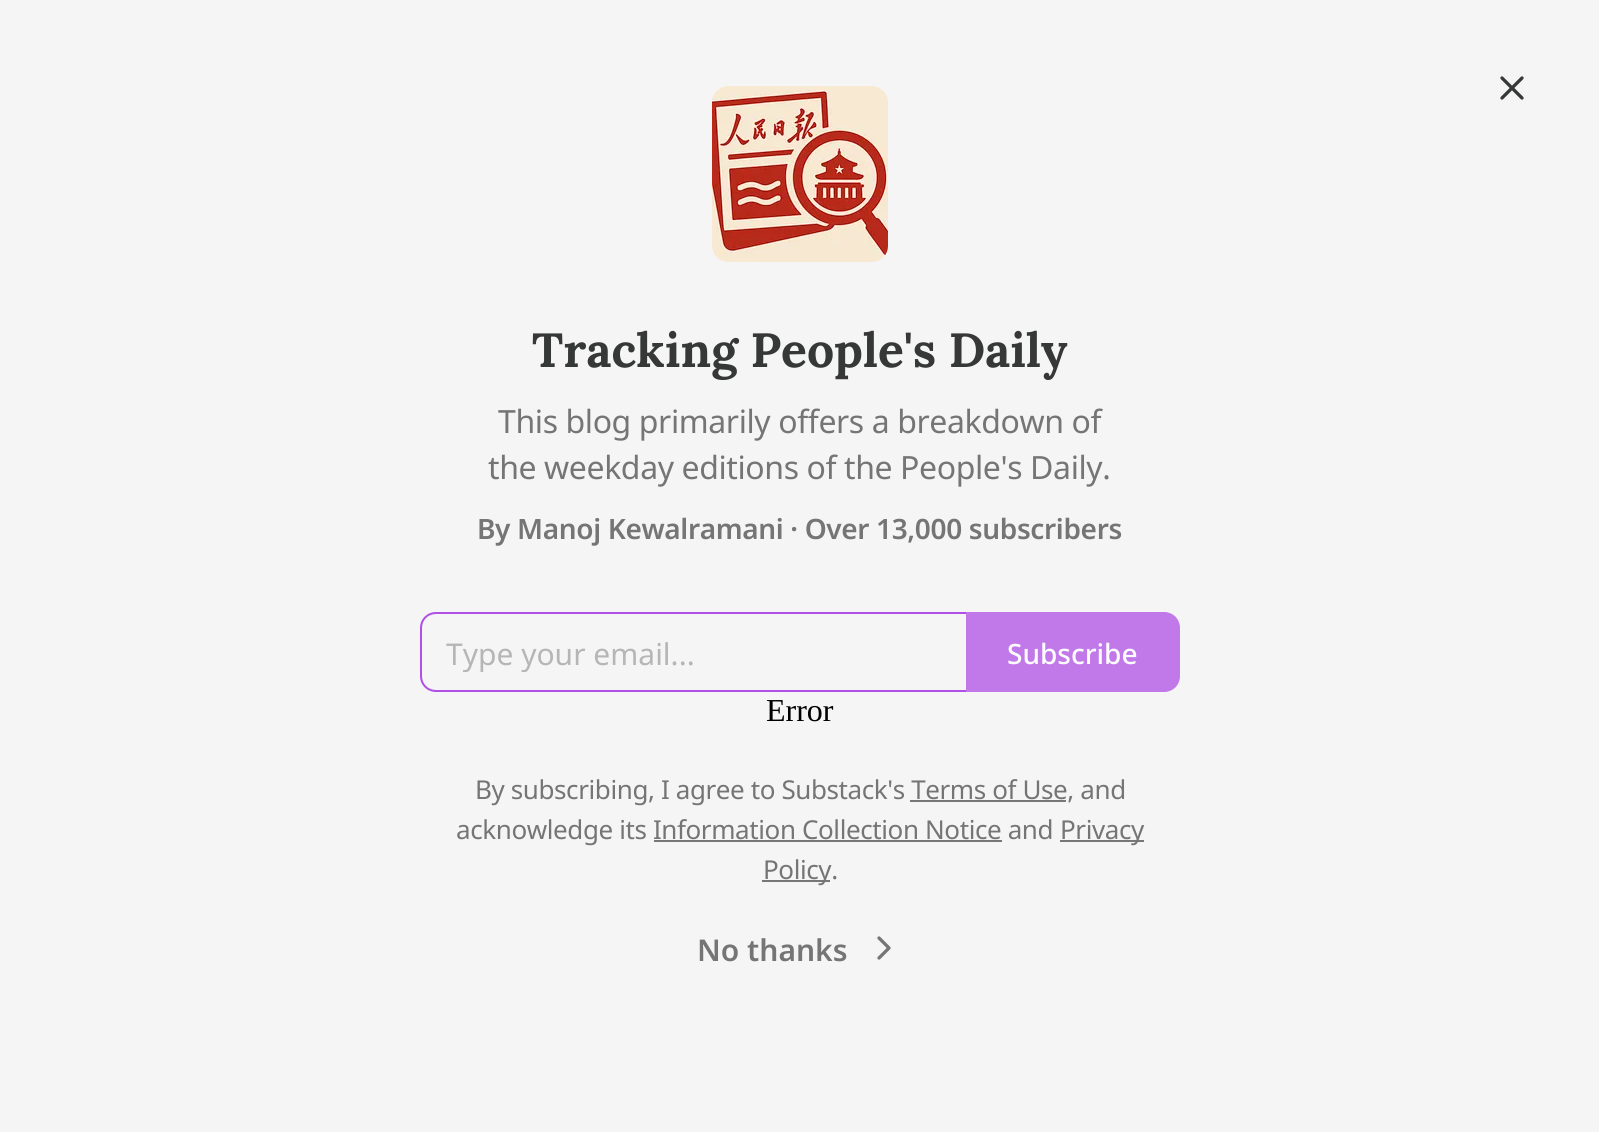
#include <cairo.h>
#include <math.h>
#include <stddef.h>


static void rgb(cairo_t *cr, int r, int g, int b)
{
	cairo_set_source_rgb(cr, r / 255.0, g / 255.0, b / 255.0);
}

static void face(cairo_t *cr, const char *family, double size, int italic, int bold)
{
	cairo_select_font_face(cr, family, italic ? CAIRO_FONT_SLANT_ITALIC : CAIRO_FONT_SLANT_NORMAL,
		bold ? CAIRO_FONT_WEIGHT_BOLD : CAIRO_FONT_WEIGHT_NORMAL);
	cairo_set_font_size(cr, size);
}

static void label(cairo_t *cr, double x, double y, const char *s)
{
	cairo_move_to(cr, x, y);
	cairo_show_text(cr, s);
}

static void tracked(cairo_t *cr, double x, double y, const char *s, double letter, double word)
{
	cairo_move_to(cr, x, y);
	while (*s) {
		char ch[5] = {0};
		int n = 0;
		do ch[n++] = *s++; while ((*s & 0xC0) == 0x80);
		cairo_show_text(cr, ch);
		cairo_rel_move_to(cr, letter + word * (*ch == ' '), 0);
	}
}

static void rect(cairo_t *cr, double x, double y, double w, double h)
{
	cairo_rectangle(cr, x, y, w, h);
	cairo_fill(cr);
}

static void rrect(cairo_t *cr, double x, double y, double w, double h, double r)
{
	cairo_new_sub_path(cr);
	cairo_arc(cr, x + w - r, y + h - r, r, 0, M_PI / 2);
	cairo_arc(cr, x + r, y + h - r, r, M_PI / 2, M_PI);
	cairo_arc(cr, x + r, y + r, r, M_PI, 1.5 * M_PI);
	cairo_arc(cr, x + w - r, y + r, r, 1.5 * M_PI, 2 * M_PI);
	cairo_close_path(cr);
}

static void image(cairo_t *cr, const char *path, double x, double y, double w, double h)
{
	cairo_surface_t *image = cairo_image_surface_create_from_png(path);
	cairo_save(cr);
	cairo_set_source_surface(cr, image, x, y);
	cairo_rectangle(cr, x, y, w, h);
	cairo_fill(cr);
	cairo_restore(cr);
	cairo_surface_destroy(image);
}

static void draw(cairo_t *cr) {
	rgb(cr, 245, 245, 245);
	cairo_paint(cr);
	rgb(cr, 255, 255, 255);
	rrect(cr, 712, 86, 176, 176, 16);
	cairo_fill(cr);
	image(cr, "image0.png", 712, 86, 176, 176);
	cairo_new_path(cr);
	cairo_move_to(cr, 1522, 78);
	cairo_line_to(cr, 1502, 98);
	cairo_move_to(cr, 1502, 78);
	cairo_line_to(cr, 1522, 98);
	rgb(cr, 54, 55, 55);
	cairo_set_line_width(cr, 3.3);
	cairo_set_line_cap(cr, CAIRO_LINE_CAP_ROUND);
	cairo_set_line_join(cr, CAIRO_LINE_JOIN_ROUND);
	cairo_stroke(cr);
	face(cr, "Lora", 48, 0, 1);
	label(cr, 532, 367, "Tracking People's Daily");
	face(cr, "Noto Sans", 32, 0, 0);
	rgb(cr, 117, 117, 117);
	tracked(cr, 498, 433, "This blog primarily offers a breakdown of", -0.4, 0);
	tracked(cr, 488, 479, "the weekday editions of the People's Daily.", -0.4, 0);
	face(cr, "Noto Sans SemiBold", 28, 0, 0);
	tracked(cr, 477, 539, "By Manoj Kewalramani · Over 13,000 subscribers", -0.35, 0);
	rgb(cr, 176, 79, 229);
	cairo_set_fill_rule(cr, CAIRO_FILL_RULE_EVEN_ODD);
	cairo_new_path(cr);
	cairo_move_to(cr, 436, 612);
	cairo_line_to(cr, 966, 612);
	cairo_line_to(cr, 966, 692);
	cairo_line_to(cr, 436, 692);
	cairo_curve_to(cr, 427, 692, 420, 685, 420, 676);
	cairo_line_to(cr, 420, 628);
	cairo_curve_to(cr, 420, 619, 427, 612, 436, 612);
	cairo_close_path(cr);
	cairo_move_to(cr, 436, 614);
	cairo_line_to(cr, 966, 614);
	cairo_line_to(cr, 966, 690);
	cairo_line_to(cr, 436, 690);
	cairo_curve_to(cr, 428, 690, 422, 684, 422, 676);
	cairo_line_to(cr, 422, 628);
	cairo_curve_to(cr, 422, 620, 428, 614, 436, 614);
	cairo_close_path(cr);
	cairo_fill(cr);
	cairo_save(cr);
	cairo_set_fill_rule(cr, CAIRO_FILL_RULE_WINDING);
	cairo_rectangle(cr, 446, 632, 496, 40);
	cairo_clip(cr);
	face(cr, "Noto Sans", 30, 0, 0);
	rgb(cr, 182, 182, 182);
	label(cr, 446, 665, "Type your email...");
	cairo_restore(cr);
	rgb(cr, 193, 121, 233);
	cairo_new_path(cr);
	cairo_move_to(cr, 967, 613);
	cairo_line_to(cr, 1164, 613);
	cairo_curve_to(cr, 1172.5, 613, 1179, 619.5, 1179, 628);
	cairo_line_to(cr, 1179, 676);
	cairo_curve_to(cr, 1179, 684.5, 1172.5, 691, 1164, 691);
	cairo_line_to(cr, 967, 691);
	cairo_close_path(cr);
	cairo_fill_preserve(cr);
	cairo_set_line_width(cr, 2);
	cairo_set_line_cap(cr, CAIRO_LINE_CAP_BUTT);
	cairo_set_line_join(cr, CAIRO_LINE_JOIN_MITER);
	cairo_stroke(cr);
	face(cr, "Noto Sans Medium", 28, 0, 0);
	rgb(cr, 253, 253, 253);
	label(cr, 1007, 664, "Subscribe");
	face(cr, "Liberation Serif", 32, 0, 0);
	rgb(cr, 0, 0, 0);
	label(cr, 766, 721, "Error");
	face(cr, "Noto Sans", 26, 0, 0);
	rgb(cr, 117, 117, 117);
	tracked(cr, 475, 799, "By subscribing, I agree to Substack's Terms of Use, and", -0.4, 0);
	rgb(cr, 119, 119, 119);
	rect(cr, 910, 800, 156, 2);
	rgb(cr, 117, 117, 117);
	tracked(cr, 456, 839, "acknowledge its Information Collection Notice and", -0.4, 0);
	rgb(cr, 119, 119, 119);
	rect(cr, 1060, 840, 84, 2);
	rgb(cr, 117, 117, 117);
	tracked(cr, 1060, 839, "Privacy", -0.4, 0);
	rgb(cr, 119, 119, 119);
	rect(cr, 654, 840, 348, 2);
	rect(cr, 762, 880, 68, 2);
	rgb(cr, 117, 117, 117);
	tracked(cr, 763, 879, "Policy.", -0.4, 0);
	face(cr, "Noto Sans SemiBold", 30, 0, 0);
	label(cr, 697, 961, "No thanks");
	cairo_new_path(cr);
	cairo_move_to(cr, 879, 958);
	cairo_line_to(cr, 889, 948);
	cairo_line_to(cr, 879, 938);
	cairo_set_line_width(cr, 3.3);
	cairo_set_line_cap(cr, CAIRO_LINE_CAP_ROUND);
	cairo_set_line_join(cr, CAIRO_LINE_JOIN_ROUND);
	cairo_stroke(cr);
}

int main(void) {
	cairo_surface_t *surface = cairo_image_surface_create(CAIRO_FORMAT_RGB24, 1599, 1132);
	cairo_t *cr = cairo_create(surface);
	cairo_font_options_t *options = cairo_font_options_create();
	cairo_font_options_set_hint_metrics(options, CAIRO_HINT_METRICS_OFF);
	cairo_font_options_set_hint_style(options, CAIRO_HINT_STYLE_NONE);
	cairo_set_font_options(cr, options);
	cairo_set_miter_limit(cr, 4);
	draw(cr);
	cairo_surface_write_to_png(surface, "render.png");
	cairo_font_options_destroy(options);
	cairo_destroy(cr);
	cairo_surface_destroy(surface);
	return 0;
}
